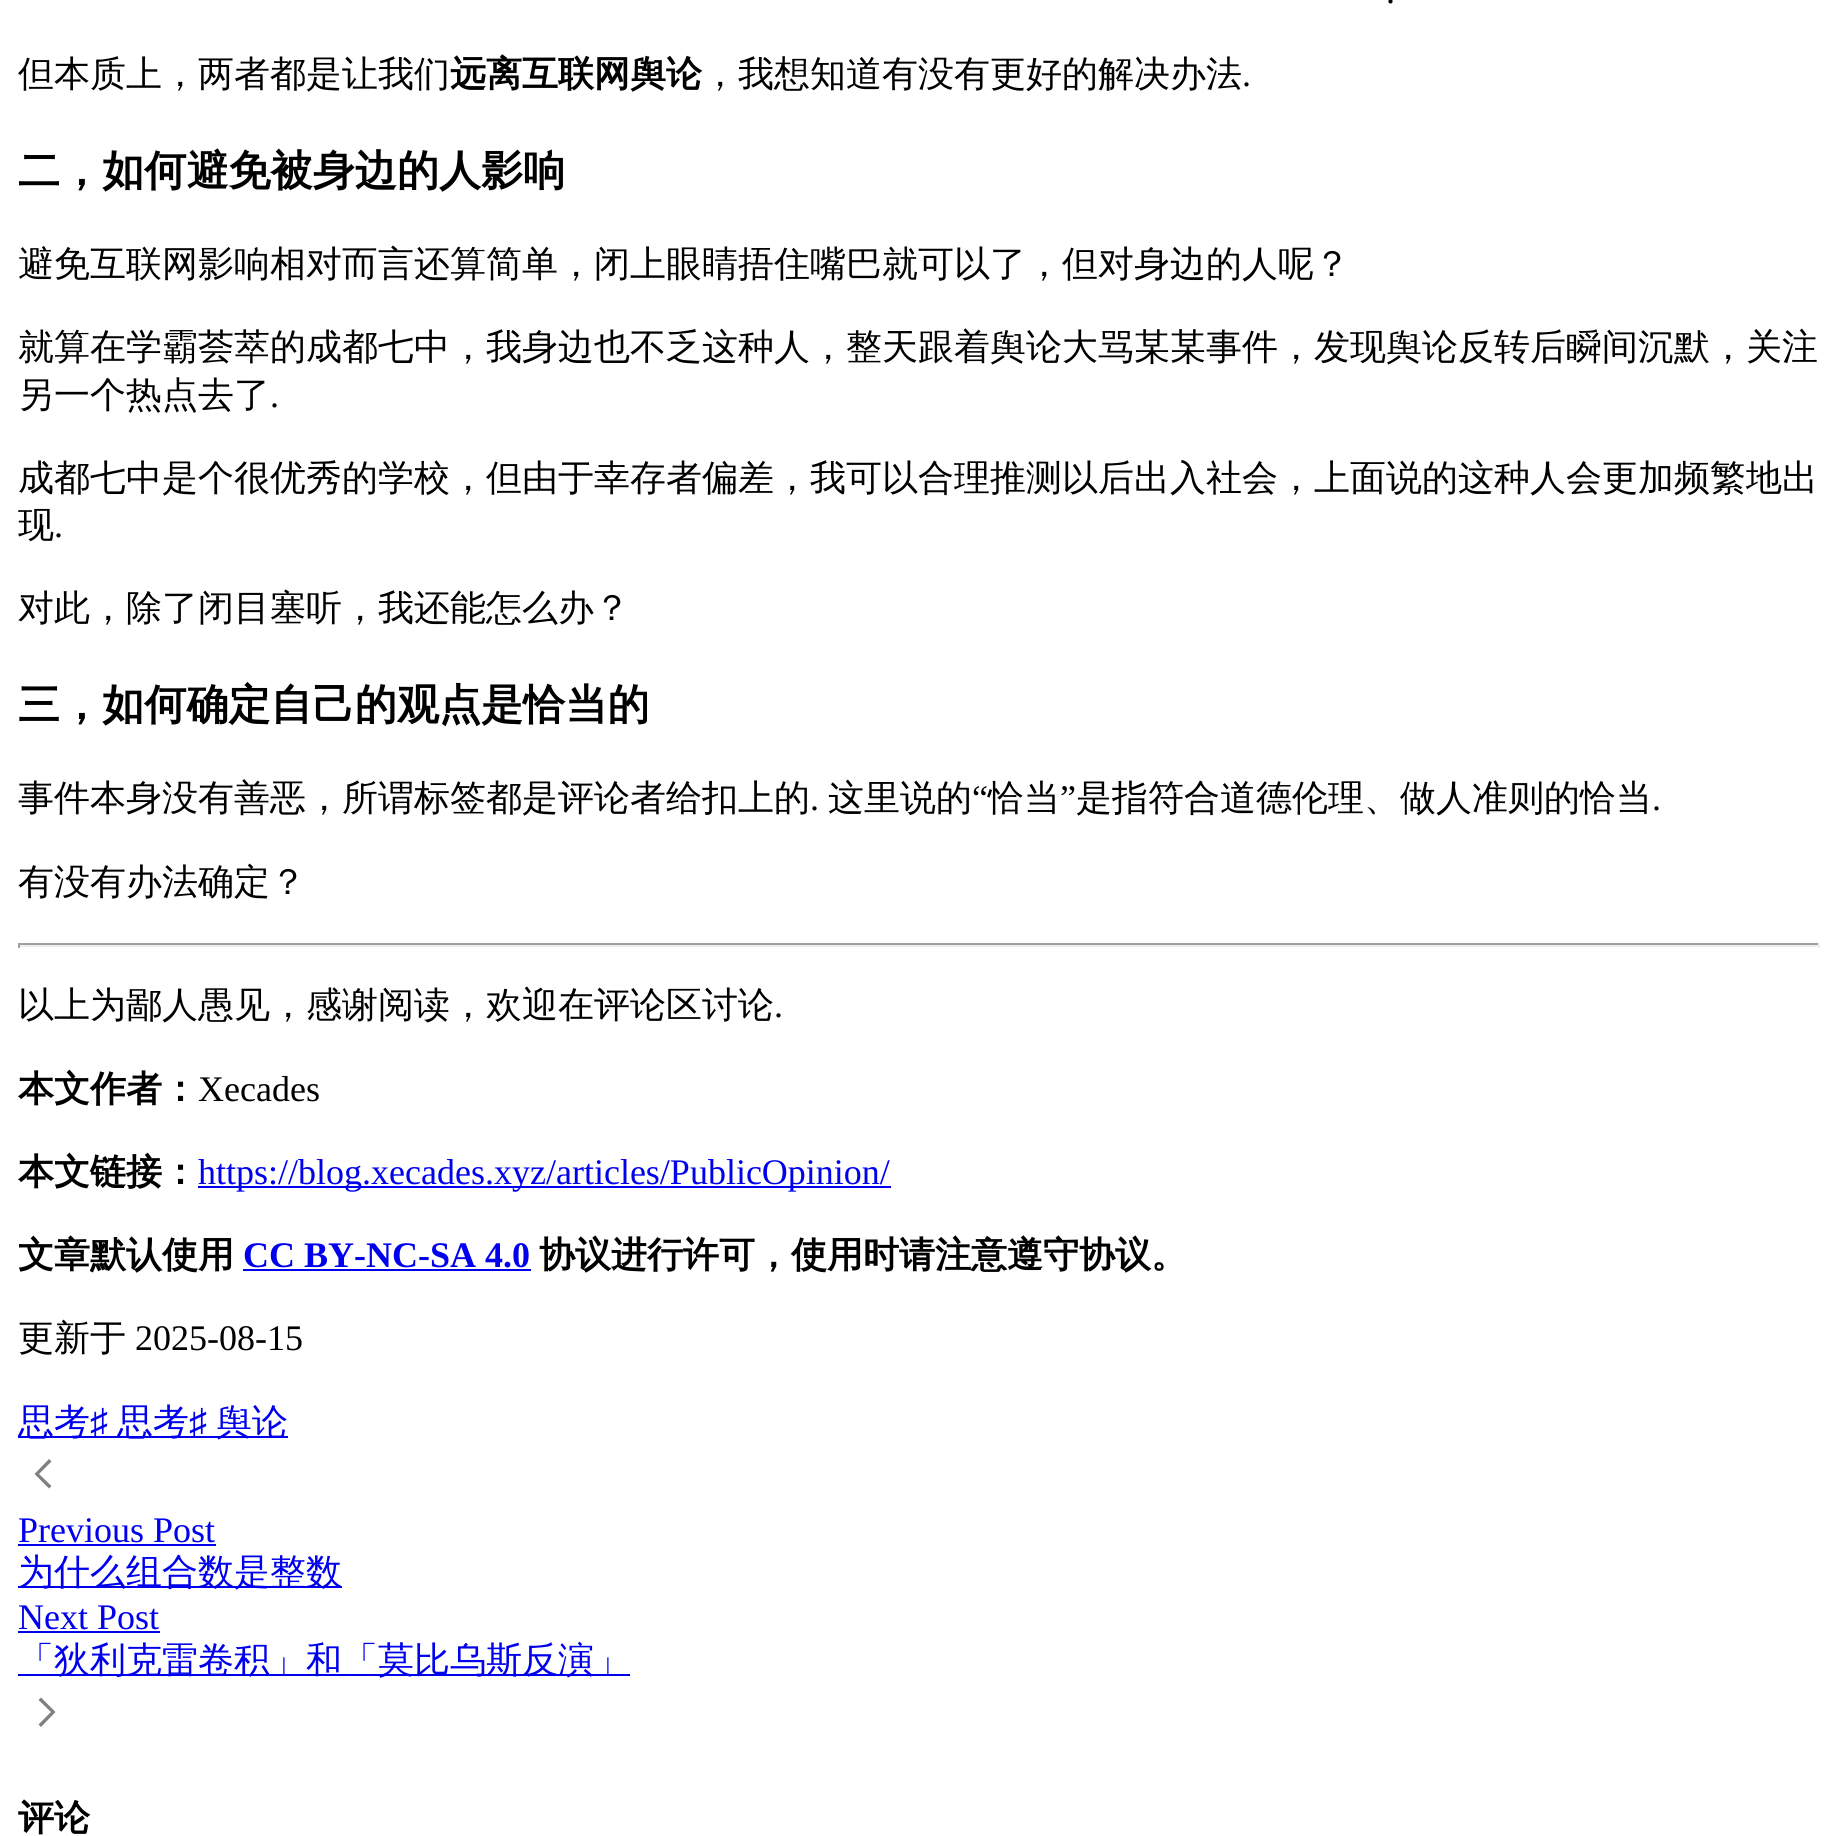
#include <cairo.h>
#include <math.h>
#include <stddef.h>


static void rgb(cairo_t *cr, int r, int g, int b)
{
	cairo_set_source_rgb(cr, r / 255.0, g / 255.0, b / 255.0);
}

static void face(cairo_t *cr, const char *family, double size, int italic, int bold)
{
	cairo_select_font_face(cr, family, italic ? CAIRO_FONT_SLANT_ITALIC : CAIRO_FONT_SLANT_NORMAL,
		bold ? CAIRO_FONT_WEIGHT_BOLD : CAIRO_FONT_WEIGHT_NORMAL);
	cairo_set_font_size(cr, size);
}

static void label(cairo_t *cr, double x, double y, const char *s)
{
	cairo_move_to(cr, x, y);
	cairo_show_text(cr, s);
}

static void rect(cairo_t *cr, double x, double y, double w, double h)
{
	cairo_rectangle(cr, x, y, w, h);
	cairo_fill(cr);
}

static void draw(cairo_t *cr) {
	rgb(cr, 255, 255, 255);
	cairo_paint(cr);
	face(cr, "Liberation Serif", 36, 0, 0);
	rgb(cr, 0, 0, 0);
	label(cr, 1386, 3, ".");
	face(cr, "WenQuanYi Zen Hei Medium", 36, 0, 0);
	label(cr, 18, 86, "但本质上，两者都是让我们");
	face(cr, "WenQuanYi Zen Hei", 36, 0, 1);
	label(cr, 450, 86, "远离互联网舆论");
	face(cr, "WenQuanYi Zen Hei Medium", 36, 0, 0);
	label(cr, 702, 86, "，我想知道有没有更好的解决办法");
	face(cr, "Liberation Serif", 36, 0, 0);
	label(cr, 1242, 86, ".");
	face(cr, "WenQuanYi Zen Hei", 42.1, 0, 1);
	label(cr, 18, 185, "二，如何避免被身边的人影响");
	face(cr, "WenQuanYi Zen Hei Medium", 36, 0, 0);
	label(cr, 18, 276, "避免互联网影响相对而言还算简单，闭上眼睛捂住嘴巴就可以了，但对身边的人呢？");
	label(cr, 18, 359, "就算在学霸荟萃的成都七中，我身边也不乏这种人，整天跟着舆论大骂某某事件，发现舆论反转后瞬间沉默，关注");
	label(cr, 18, 407, "另一个热点去了");
	face(cr, "Liberation Serif", 36, 0, 0);
	label(cr, 270, 407, ".");
	face(cr, "WenQuanYi Zen Hei Medium", 36, 0, 0);
	label(cr, 18, 490, "成都七中是个很优秀的学校，但由于幸存者偏差，我可以合理推测以后出入社会，上面说的这种人会更加频繁地出");
	label(cr, 18, 537, "现");
	face(cr, "Liberation Serif", 36, 0, 0);
	label(cr, 54, 537, ".");
	face(cr, "WenQuanYi Zen Hei Medium", 36, 0, 0);
	label(cr, 18, 620, "对此，除了闭目塞听，我还能怎么办？");
	face(cr, "WenQuanYi Zen Hei", 42.1, 0, 1);
	label(cr, 18, 719, "三，如何确定自己的观点是恰当的");
	face(cr, "WenQuanYi Zen Hei Medium", 36, 0, 0);
	label(cr, 18, 810, "事件本身没有善恶，所谓标签都是评论者给扣上的");
	label(cr, 828, 810, "这里说的");
	face(cr, "Liberation Serif", 36, 0, 0);
	label(cr, 972, 810, "“");
	face(cr, "WenQuanYi Zen Hei Medium", 36, 0, 0);
	label(cr, 988, 810, "恰当");
	face(cr, "Liberation Serif", 36, 0, 0);
	label(cr, 1060, 810, "”");
	face(cr, "WenQuanYi Zen Hei Medium", 36, 0, 0);
	label(cr, 1076, 810, "是指符合道德伦理、做人准则的恰当");
	face(cr, "Liberation Serif", 36, 0, 0);
	label(cr, 810, 810, ".");
	label(cr, 1652, 810, ".");
	face(cr, "WenQuanYi Zen Hei Medium", 36, 0, 0);
	label(cr, 18, 894, "有没有办法确定？");
	rgb(cr, 159, 159, 159);
	rect(cr, 18, 943, 1802, 2);
	rgb(cr, 238, 238, 238);
	rect(cr, 1818, 943, 2, 5);
	rect(cr, 18, 945, 1802, 2);
	rgb(cr, 159, 159, 159);
	rect(cr, 18, 943, 2, 5);
	rgb(cr, 0, 0, 0);
	label(cr, 18, 1017, "以上为鄙人愚见，感谢阅读，欢迎在评论区讨论");
	face(cr, "Liberation Serif", 36, 0, 0);
	label(cr, 774, 1017, ".");
	face(cr, "WenQuanYi Zen Hei", 36, 0, 1);
	label(cr, 18, 1101, "本文作者：");
	face(cr, "Liberation Serif", 36, 0, 0);
	label(cr, 198, 1101, "Xecades");
	face(cr, "WenQuanYi Zen Hei", 36, 0, 1);
	label(cr, 18, 1184, "本文链接：");
	rgb(cr, 0, 0, 238);
	rect(cr, 198, 1186, 693, 2);
	face(cr, "Liberation Serif", 36, 0, 0);
	label(cr, 198, 1184, "https://blog.xecades.xyz/articles/PublicOpinion/");
	face(cr, "WenQuanYi Zen Hei", 36, 0, 1);
	rgb(cr, 0, 0, 0);
	label(cr, 18, 1267, "文章默认使用");
	face(cr, "Liberation Serif", 36, 0, 1);
	rgb(cr, 0, 0, 238);
	label(cr, 243, 1267, "CC BY-NC-SA 4.0");
	rect(cr, 243, 1269, 288, 2);
	face(cr, "WenQuanYi Zen Hei", 36, 0, 1);
	rgb(cr, 0, 0, 0);
	label(cr, 539, 1267, "协议进行许可，使用时请注意遵守协议。");
	face(cr, "WenQuanYi Zen Hei Medium", 36, 0, 0);
	label(cr, 18, 1350, "更新于");
	face(cr, "Liberation Serif", 36, 0, 0);
	label(cr, 135, 1350, "2025-08-15");
	rgb(cr, 0, 0, 238);
	rect(cr, 18, 1436, 270, 2);
	face(cr, "WenQuanYi Zen Hei Medium", 36, 0, 0);
	label(cr, 18, 1434, "思考");
	face(cr, "Liberation Serif", 36, 0, 0);
	label(cr, 90, 1434, "♯");
	face(cr, "WenQuanYi Zen Hei Medium", 36, 0, 0);
	label(cr, 117, 1434, "思考");
	face(cr, "Liberation Serif", 36, 0, 0);
	label(cr, 189, 1434, "♯");
	face(cr, "WenQuanYi Zen Hei Medium", 36, 0, 0);
	label(cr, 216, 1434, "舆论");
	rgb(cr, 128, 128, 128);
	cairo_new_path(cr);
	cairo_move_to(cr, 49, 1488.5);
	cairo_line_to(cr, 34.5, 1474);
	cairo_line_to(cr, 49, 1459);
	cairo_line_to(cr, 51.5, 1461.5);
	cairo_line_to(cr, 39, 1474);
	cairo_line_to(cr, 51.5, 1486);
	cairo_close_path(cr);
	cairo_fill(cr);
	face(cr, "Liberation Serif", 36, 0, 0);
	rgb(cr, 0, 0, 238);
	label(cr, 18, 1542, "Previous Post");
	rect(cr, 18, 1544, 198, 2);
	rect(cr, 18, 1586, 324, 2);
	face(cr, "WenQuanYi Zen Hei Medium", 36, 0, 0);
	label(cr, 18, 1584, "为什么组合数是整数");
	face(cr, "Liberation Serif", 36, 0, 0);
	label(cr, 18, 1629, "Next Post");
	rect(cr, 18, 1631, 142, 2);
	rect(cr, 18, 1674, 612, 2);
	face(cr, "WenQuanYi Zen Hei Medium", 36, 0, 0);
	label(cr, 18, 1672, "「狄利克雷卷积」和「莫比乌斯反演」");
	rgb(cr, 128, 128, 128);
	cairo_new_path(cr);
	cairo_move_to(cr, 41, 1727);
	cairo_line_to(cr, 38.5, 1724.5);
	cairo_line_to(cr, 51, 1712);
	cairo_line_to(cr, 38.5, 1700);
	cairo_line_to(cr, 41, 1697.5);
	cairo_line_to(cr, 55.5, 1712);
	cairo_close_path(cr);
	cairo_fill(cr);
	face(cr, "WenQuanYi Zen Hei", 36, 0, 1);
	rgb(cr, 0, 0, 0);
	label(cr, 18, 1830, "评论");
}

int main(void) {
	cairo_surface_t *surface = cairo_image_surface_create(CAIRO_FORMAT_RGB24, 1838, 1836);
	cairo_t *cr = cairo_create(surface);
	cairo_font_options_t *options = cairo_font_options_create();
	cairo_font_options_set_hint_metrics(options, CAIRO_HINT_METRICS_OFF);
	cairo_font_options_set_hint_style(options, CAIRO_HINT_STYLE_NONE);
	cairo_set_font_options(cr, options);
	cairo_set_miter_limit(cr, 4);
	draw(cr);
	cairo_surface_write_to_png(surface, "render.png");
	cairo_font_options_destroy(options);
	cairo_destroy(cr);
	cairo_surface_destroy(surface);
	return 0;
}
